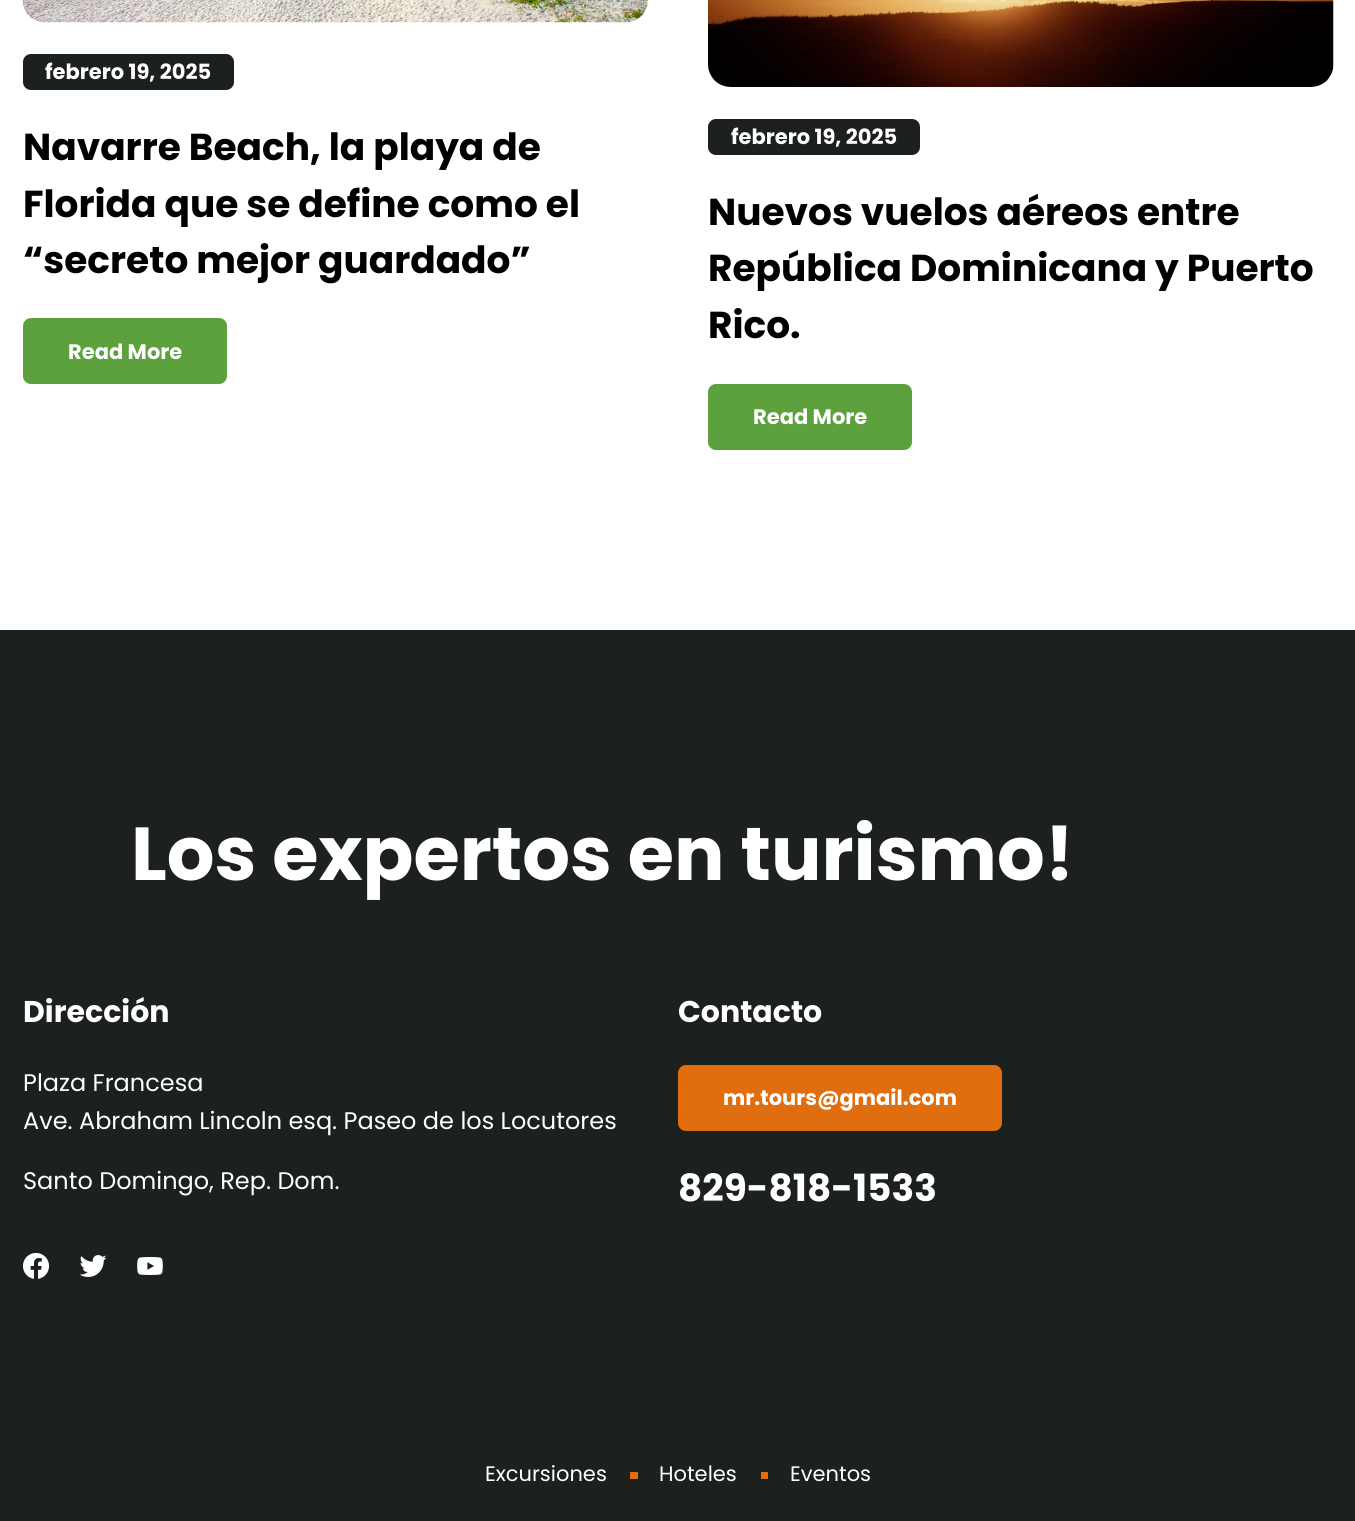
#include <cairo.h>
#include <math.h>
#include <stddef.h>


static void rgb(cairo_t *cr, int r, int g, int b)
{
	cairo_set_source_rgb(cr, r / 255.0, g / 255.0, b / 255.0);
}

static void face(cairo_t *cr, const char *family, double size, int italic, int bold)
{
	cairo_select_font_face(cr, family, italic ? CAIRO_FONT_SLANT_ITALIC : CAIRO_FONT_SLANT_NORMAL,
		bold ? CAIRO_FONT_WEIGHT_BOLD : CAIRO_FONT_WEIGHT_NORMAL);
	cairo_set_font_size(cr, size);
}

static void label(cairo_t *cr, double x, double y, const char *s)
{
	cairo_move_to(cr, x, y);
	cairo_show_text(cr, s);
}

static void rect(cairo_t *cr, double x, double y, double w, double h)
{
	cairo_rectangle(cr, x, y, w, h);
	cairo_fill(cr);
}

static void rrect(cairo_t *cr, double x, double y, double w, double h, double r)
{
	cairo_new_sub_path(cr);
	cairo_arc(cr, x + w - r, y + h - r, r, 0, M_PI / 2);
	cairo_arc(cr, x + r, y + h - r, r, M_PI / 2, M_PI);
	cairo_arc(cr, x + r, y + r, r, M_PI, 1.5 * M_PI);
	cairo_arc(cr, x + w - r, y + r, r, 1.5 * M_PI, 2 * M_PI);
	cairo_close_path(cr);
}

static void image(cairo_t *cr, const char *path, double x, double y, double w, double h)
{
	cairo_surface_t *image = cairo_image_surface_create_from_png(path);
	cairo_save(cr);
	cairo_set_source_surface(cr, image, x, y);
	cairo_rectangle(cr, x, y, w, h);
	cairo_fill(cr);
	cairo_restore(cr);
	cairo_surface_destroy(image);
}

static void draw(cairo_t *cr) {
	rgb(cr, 255, 255, 255);
	cairo_paint(cr);
	image(cr, "image0.png", 22, 0, 626, 23);
	rgb(cr, 28, 33, 30);
	rrect(cr, 23, 54, 211, 36, 8);
	cairo_fill(cr);
	face(cr, "Poppins", 21, 0, 1);
	rgb(cr, 255, 255, 255);
	label(cr, 45, 79, "febrero 19, 2025");
	face(cr, "Poppins", 37.5, 0, 1);
	rgb(cr, 0, 0, 0);
	label(cr, 23, 160, "Navarre Beach, la playa de");
	label(cr, 23, 217, "Florida que se define como el");
	label(cr, 23, 273, "“secreto mejor guardado”");
	rgb(cr, 92, 161, 62);
	rrect(cr, 23, 318, 204, 66, 8);
	cairo_fill(cr);
	face(cr, "Poppins", 21, 0, 1);
	rgb(cr, 255, 255, 255);
	label(cr, 68, 359, "Read More");
	image(cr, "image1.png", 708, 0, 626, 87);
	rgb(cr, 28, 33, 30);
	rrect(cr, 708, 119, 212, 36, 8);
	cairo_fill(cr);
	rgb(cr, 255, 255, 255);
	label(cr, 731, 144, "febrero 19, 2025");
	face(cr, "Poppins", 37.5, 0, 1);
	rgb(cr, 0, 0, 0);
	label(cr, 708, 225, "Nuevos vuelos aéreos entre");
	label(cr, 708, 281, "República Dominicana y Puerto");
	label(cr, 708, 338, "Rico.");
	rgb(cr, 92, 161, 62);
	rrect(cr, 708, 384, 204, 66, 8);
	cairo_fill(cr);
	face(cr, "Poppins", 21, 0, 1);
	rgb(cr, 255, 255, 255);
	label(cr, 753, 424, "Read More");
	rgb(cr, 28, 33, 30);
	rect(cr, 0, 630, 1355, 891);
	face(cr, "Poppins", 75, 0, 1);
	rgb(cr, 255, 255, 255);
	label(cr, 131, 880, "Los expertos en turismo!");
	face(cr, "Poppins", 30, 0, 1);
	label(cr, 23, 1022, "Dirección");
	face(cr, "Poppins", 24, 0, 0);
	label(cr, 23, 1091, "Plaza Francesa");
	label(cr, 23, 1129, "Ave. Abraham Lincoln esq. Paseo de los Locutores");
	label(cr, 23, 1189, "Santo Domingo, Rep. Dom.");
	image(cr, "image2.png", 23, 1253, 27, 26);
	image(cr, "image3.png", 80, 1255, 27, 22);
	image(cr, "image4.png", 137, 1257, 26, 18);
	face(cr, "Poppins", 30, 0, 1);
	label(cr, 678, 1022, "Contacto");
	rgb(cr, 225, 110, 14);
	rrect(cr, 678, 1065, 324, 66, 8);
	cairo_fill(cr);
	face(cr, "Poppins", 21, 0, 1);
	rgb(cr, 255, 255, 255);
	label(cr, 723, 1105, "mr.tours@gmail.com");
	face(cr, "Poppins", 37.5, 0, 1);
	label(cr, 678, 1201, "829-818-1533");
	face(cr, "Poppins", 21, 0, 0);
	label(cr, 485, 1481, "Excursiones");
	rgb(cr, 225, 110, 14);
	rect(cr, 630, 1472, 8, 7);
	rgb(cr, 255, 255, 255);
	label(cr, 659, 1481, "Hoteles");
	rgb(cr, 225, 110, 14);
	rect(cr, 761, 1472, 7, 7);
	rgb(cr, 255, 255, 255);
	label(cr, 790, 1481, "Eventos");
}

int main(void) {
	cairo_surface_t *surface = cairo_image_surface_create(CAIRO_FORMAT_RGB24, 1355, 1521);
	cairo_t *cr = cairo_create(surface);
	cairo_font_options_t *options = cairo_font_options_create();
	cairo_font_options_set_hint_metrics(options, CAIRO_HINT_METRICS_OFF);
	cairo_font_options_set_hint_style(options, CAIRO_HINT_STYLE_NONE);
	cairo_set_font_options(cr, options);
	cairo_set_miter_limit(cr, 4);
	draw(cr);
	cairo_surface_write_to_png(surface, "render.png");
	cairo_font_options_destroy(options);
	cairo_destroy(cr);
	cairo_surface_destroy(surface);
	return 0;
}
